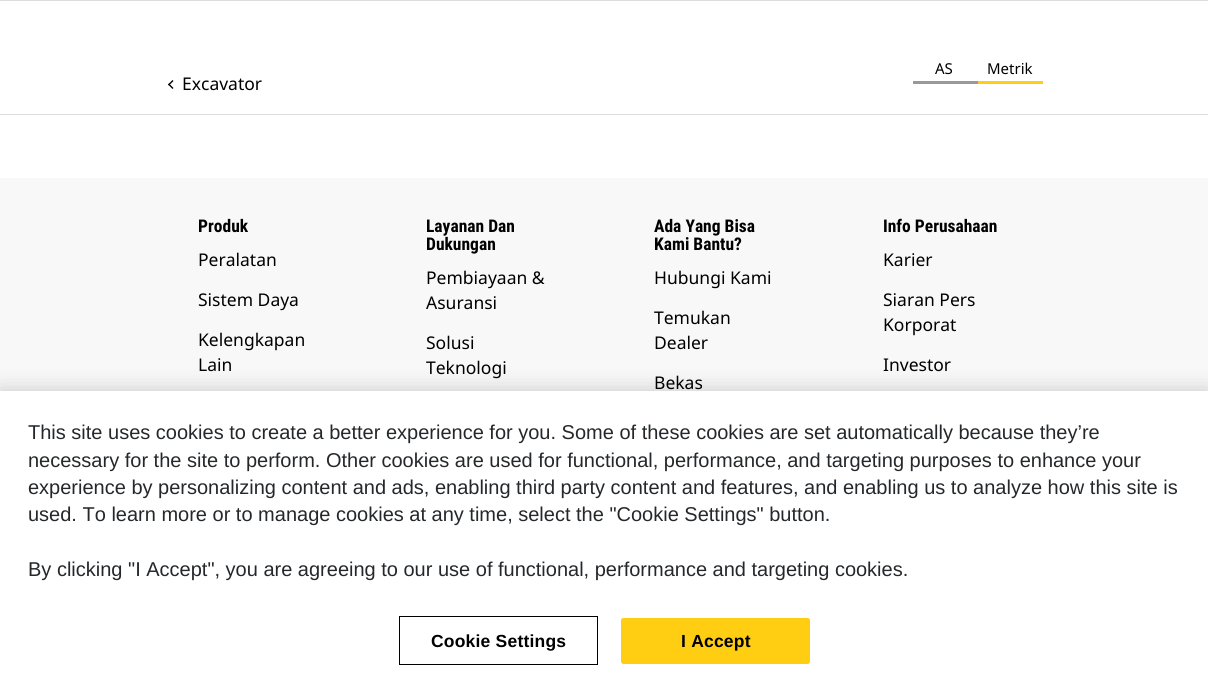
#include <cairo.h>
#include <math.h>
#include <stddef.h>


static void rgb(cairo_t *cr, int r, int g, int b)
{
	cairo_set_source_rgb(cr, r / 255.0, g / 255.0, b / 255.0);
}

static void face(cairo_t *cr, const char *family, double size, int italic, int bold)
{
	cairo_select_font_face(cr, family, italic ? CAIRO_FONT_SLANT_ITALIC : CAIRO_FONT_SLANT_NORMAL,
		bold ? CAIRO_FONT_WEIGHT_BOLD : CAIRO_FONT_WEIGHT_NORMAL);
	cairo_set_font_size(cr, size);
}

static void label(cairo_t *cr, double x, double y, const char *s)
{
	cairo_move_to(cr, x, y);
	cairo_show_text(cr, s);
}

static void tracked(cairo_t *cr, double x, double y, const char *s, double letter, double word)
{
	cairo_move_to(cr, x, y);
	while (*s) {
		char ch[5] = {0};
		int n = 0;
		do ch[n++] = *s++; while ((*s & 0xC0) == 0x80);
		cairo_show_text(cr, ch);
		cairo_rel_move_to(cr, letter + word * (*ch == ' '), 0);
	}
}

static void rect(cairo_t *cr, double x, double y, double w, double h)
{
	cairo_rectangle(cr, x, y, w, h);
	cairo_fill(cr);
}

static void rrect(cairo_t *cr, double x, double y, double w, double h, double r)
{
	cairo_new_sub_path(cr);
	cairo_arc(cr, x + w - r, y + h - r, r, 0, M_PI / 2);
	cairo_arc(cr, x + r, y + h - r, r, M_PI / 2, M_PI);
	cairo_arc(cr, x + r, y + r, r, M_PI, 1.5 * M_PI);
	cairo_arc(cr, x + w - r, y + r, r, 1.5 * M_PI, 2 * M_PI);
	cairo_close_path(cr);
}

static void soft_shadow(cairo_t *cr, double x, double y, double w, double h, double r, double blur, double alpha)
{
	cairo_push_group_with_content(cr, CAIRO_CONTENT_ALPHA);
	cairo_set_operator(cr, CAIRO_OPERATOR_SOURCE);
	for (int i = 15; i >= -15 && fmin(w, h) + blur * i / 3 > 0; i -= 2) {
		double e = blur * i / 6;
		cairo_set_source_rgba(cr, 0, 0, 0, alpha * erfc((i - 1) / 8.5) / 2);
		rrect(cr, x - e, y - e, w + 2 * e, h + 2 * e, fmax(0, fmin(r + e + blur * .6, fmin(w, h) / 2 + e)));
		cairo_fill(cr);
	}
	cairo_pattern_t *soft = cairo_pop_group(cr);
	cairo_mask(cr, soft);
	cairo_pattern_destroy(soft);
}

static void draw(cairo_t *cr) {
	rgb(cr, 255, 255, 255);
	cairo_paint(cr);
	rgb(cr, 221, 221, 221);
	rect(cr, 0, 0, 1208, 1);
	rect(cr, 0, 114, 1208, 1);
	rgb(cr, 153, 153, 153);
	rect(cr, 913, 81, 65, 3);
	face(cr, "Noto Sans", 15, 0, 0);
	rgb(cr, 0, 0, 0);
	label(cr, 935, 74, "AS");
	rgb(cr, 255, 205, 17);
	rect(cr, 978, 81, 65, 3);
	rgb(cr, 0, 0, 0);
	label(cr, 987, 74, "Metrik");
	cairo_new_path(cr);
	cairo_move_to(cr, 173.5, 88);
	cairo_line_to(cr, 172.5, 89);
	cairo_line_to(cr, 168, 84.5);
	cairo_line_to(cr, 169, 83.5);
	cairo_close_path(cr);
	cairo_fill(cr);
	cairo_new_path(cr);
	cairo_move_to(cr, 173.5, 81);
	cairo_line_to(cr, 169, 85.5);
	cairo_line_to(cr, 168, 84.5);
	cairo_line_to(cr, 172.5, 80);
	cairo_close_path(cr);
	cairo_fill(cr);
	face(cr, "Noto Sans", 17.5, 0, 0);
	label(cr, 182, 90, "Excavator");
	rgb(cr, 248, 248, 248);
	rect(cr, 0, 178, 1208, 213);
	face(cr, "Roboto Condensed", 17.5, 0, 1);
	rgb(cr, 0, 0, 0);
	label(cr, 198, 232, "Produk");
	face(cr, "Noto Sans", 17.5, 0, 0);
	label(cr, 198, 266, "Peralatan");
	label(cr, 198, 306, "Sistem Daya");
	label(cr, 198, 346, "Kelengkapan");
	label(cr, 198, 371, "Lain");
	face(cr, "Roboto Condensed", 17.5, 0, 1);
	label(cr, 426, 232, "Layanan Dan");
	label(cr, 426, 250, "Dukungan");
	face(cr, "Noto Sans", 17.5, 0, 0);
	label(cr, 426, 284, "Pembiayaan &");
	label(cr, 426, 309, "Asuransi");
	label(cr, 426, 349, "Solusi");
	label(cr, 426, 374, "Teknologi");
	face(cr, "Roboto Condensed", 17.5, 0, 1);
	label(cr, 654, 232, "Ada Yang Bisa");
	label(cr, 654, 250, "Kami Bantu?");
	face(cr, "Noto Sans", 17.5, 0, 0);
	label(cr, 654, 284, "Hubungi Kami");
	label(cr, 654, 324, "Temukan");
	label(cr, 654, 349, "Dealer");
	label(cr, 654, 389, "Bekas");
	face(cr, "Roboto Condensed", 17.5, 0, 1);
	label(cr, 883, 232, "Info Perusahaan");
	face(cr, "Noto Sans", 17.5, 0, 0);
	label(cr, 883, 266, "Karier");
	label(cr, 883, 306, "Siaran Pers");
	label(cr, 883, 331, "Korporat");
	label(cr, 883, 371, "Investor");
	rgb(cr, 0, 0, 0);
	soft_shadow(cr, 0, 391, 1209, 304, 0, 11, 0.2);
	rgb(cr, 255, 255, 255);
	rect(cr, 0, 391, 1208, 304);
	face(cr, "Liberation Sans", 20, 0, 0);
	rgb(cr, 37, 40, 43);
	label(cr, 28, 439, "This site uses cookies to create a better experience for you. Some of these cookies are set automatically because they’re");
	label(cr, 28, 467, "necessary for the site to perform. Other cookies are used for functional, performance, and targeting purposes to enhance your");
	label(cr, 28, 494, "experience by personalizing content and ads, enabling third party content and features, and enabling us to analyze how this site is");
	label(cr, 28, 521, "used. To learn more or to manage cookies at any time, select the \"Cookie Settings\" button.");
	label(cr, 28, 576, "By clicking \"I Accept\", you are agreeing to our use of functional, performance and targeting cookies.");
	cairo_rectangle(cr, 399.5, 616.5, 198, 48);
	rgb(cr, 0, 0, 0);
	cairo_set_line_width(cr, 1);
	cairo_stroke(cr);
	face(cr, "Liberation Sans", 17.5, 0, 1);
	tracked(cr, 431, 647, "Cookie Settings", 0.2, 0);
	rgb(cr, 255, 205, 17);
	rrect(cr, 621, 618, 189, 46, 2.5);
	cairo_fill(cr);
	rgb(cr, 0, 0, 0);
	tracked(cr, 681, 647, "I Accept", 0.2, 0);
}

int main(void) {
	cairo_surface_t *surface = cairo_image_surface_create(CAIRO_FORMAT_RGB24, 1208, 695);
	cairo_t *cr = cairo_create(surface);
	cairo_font_options_t *options = cairo_font_options_create();
	cairo_font_options_set_hint_metrics(options, CAIRO_HINT_METRICS_OFF);
	cairo_font_options_set_hint_style(options, CAIRO_HINT_STYLE_NONE);
	cairo_set_font_options(cr, options);
	cairo_set_miter_limit(cr, 4);
	draw(cr);
	cairo_surface_write_to_png(surface, "render.png");
	cairo_font_options_destroy(options);
	cairo_destroy(cr);
	cairo_surface_destroy(surface);
	return 0;
}
